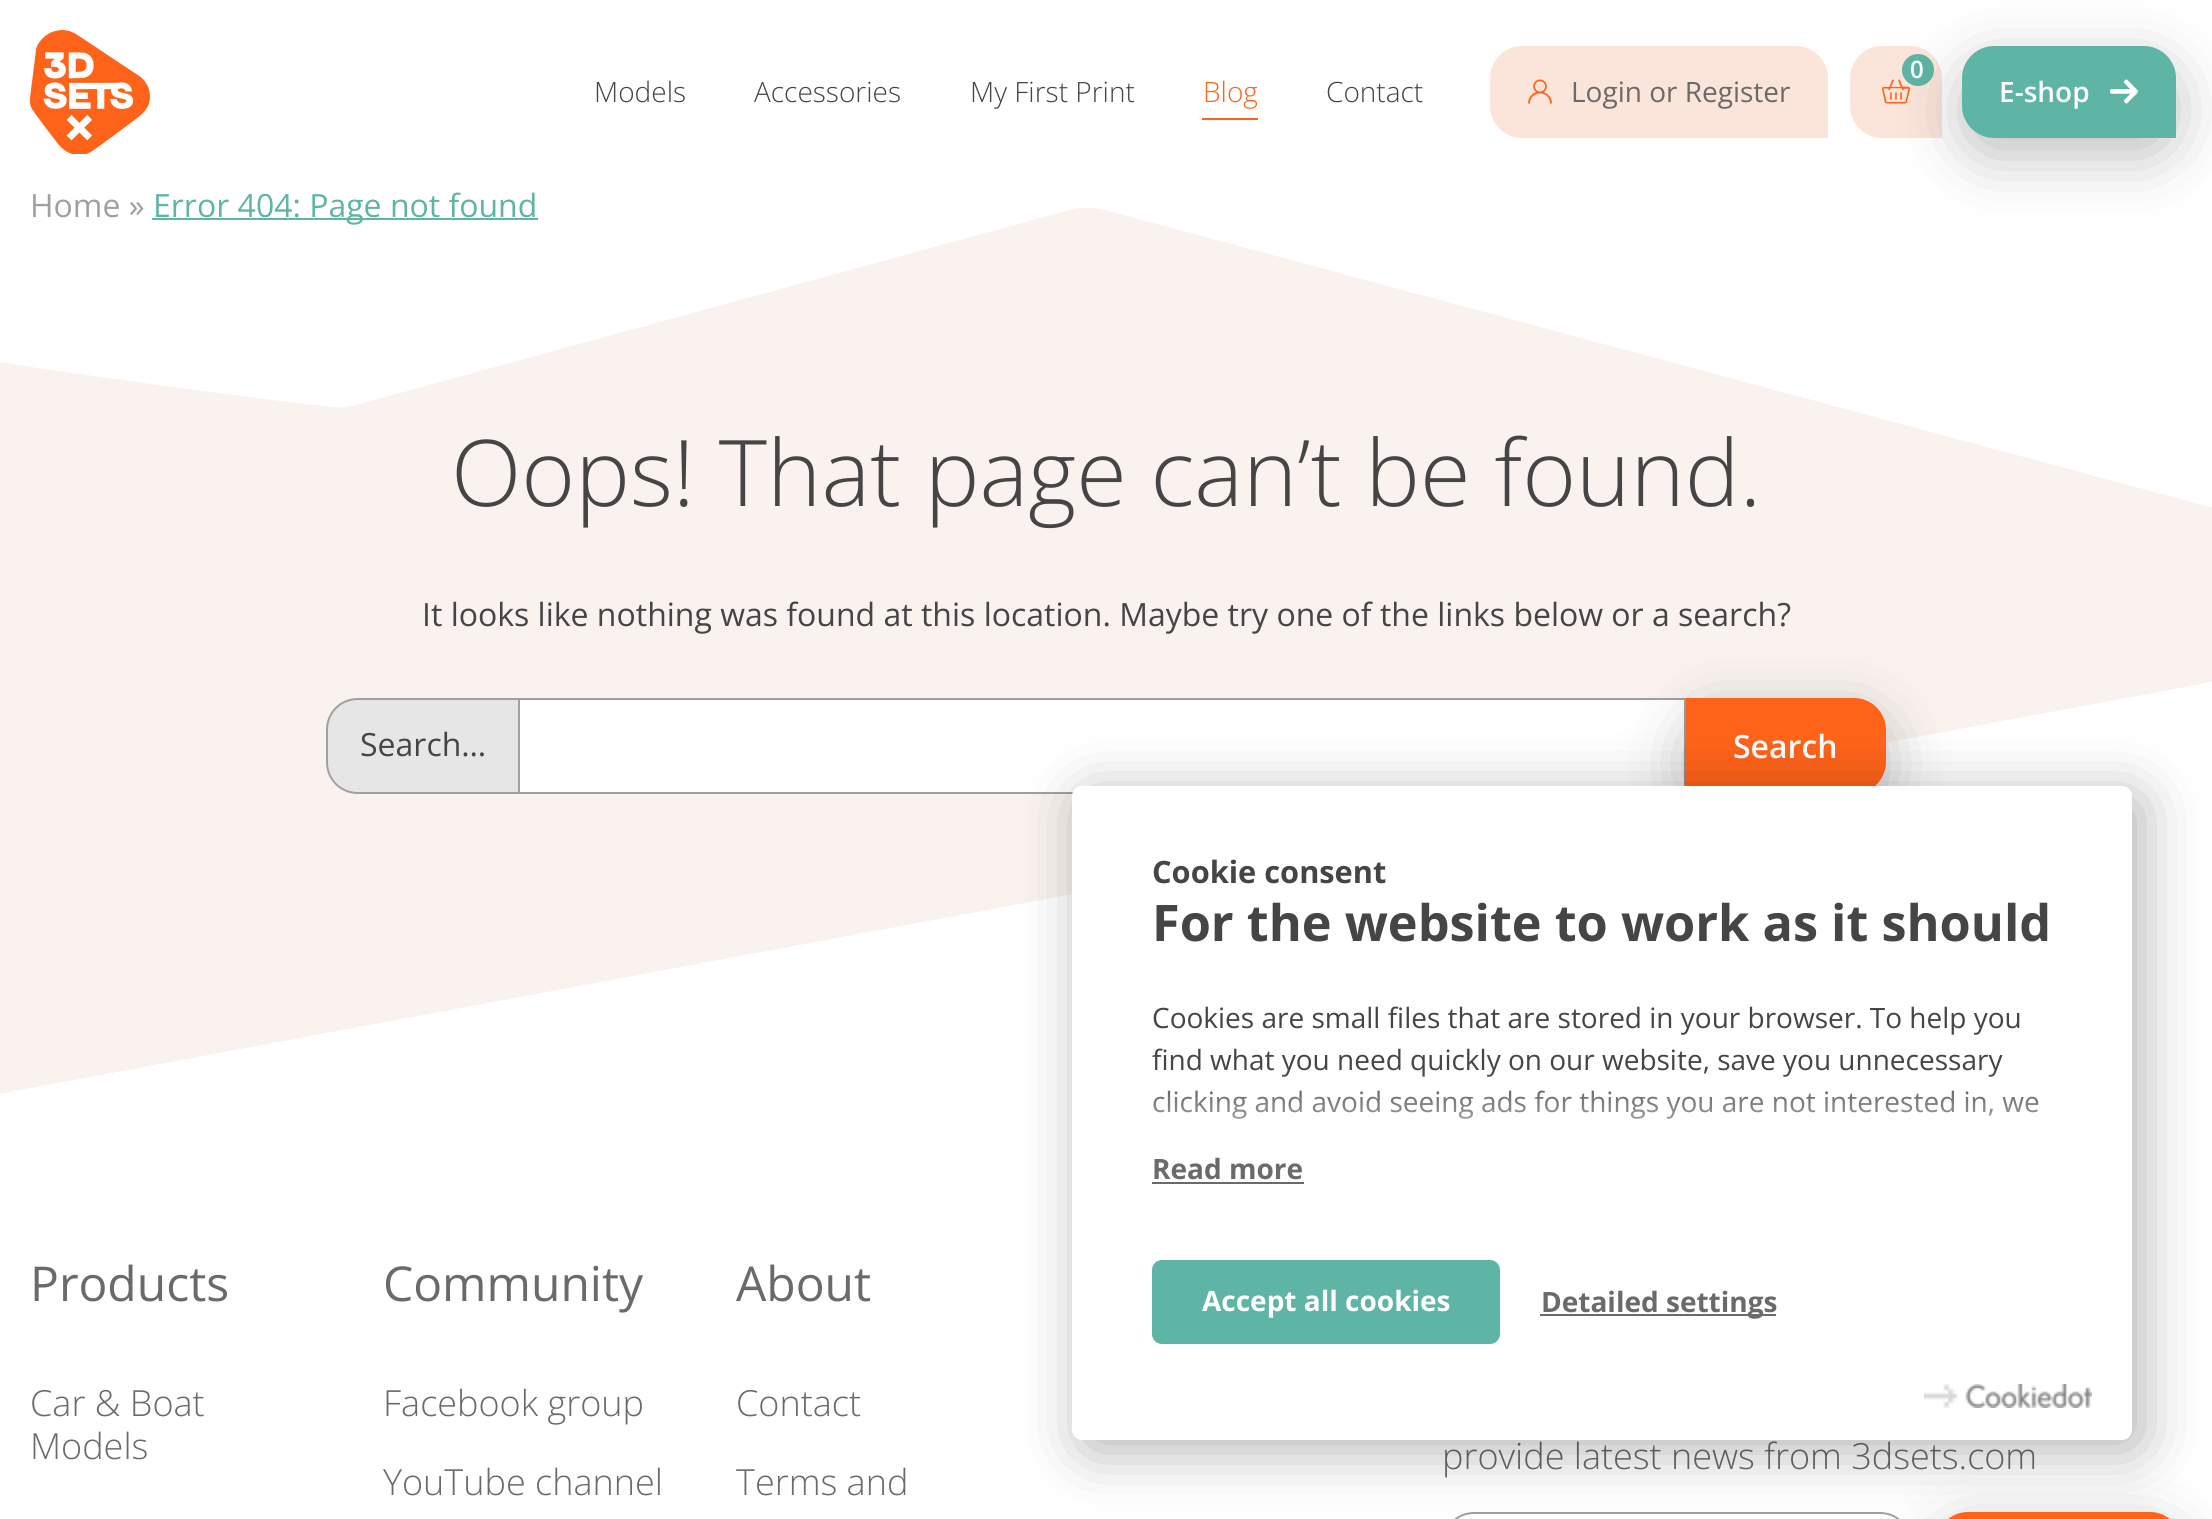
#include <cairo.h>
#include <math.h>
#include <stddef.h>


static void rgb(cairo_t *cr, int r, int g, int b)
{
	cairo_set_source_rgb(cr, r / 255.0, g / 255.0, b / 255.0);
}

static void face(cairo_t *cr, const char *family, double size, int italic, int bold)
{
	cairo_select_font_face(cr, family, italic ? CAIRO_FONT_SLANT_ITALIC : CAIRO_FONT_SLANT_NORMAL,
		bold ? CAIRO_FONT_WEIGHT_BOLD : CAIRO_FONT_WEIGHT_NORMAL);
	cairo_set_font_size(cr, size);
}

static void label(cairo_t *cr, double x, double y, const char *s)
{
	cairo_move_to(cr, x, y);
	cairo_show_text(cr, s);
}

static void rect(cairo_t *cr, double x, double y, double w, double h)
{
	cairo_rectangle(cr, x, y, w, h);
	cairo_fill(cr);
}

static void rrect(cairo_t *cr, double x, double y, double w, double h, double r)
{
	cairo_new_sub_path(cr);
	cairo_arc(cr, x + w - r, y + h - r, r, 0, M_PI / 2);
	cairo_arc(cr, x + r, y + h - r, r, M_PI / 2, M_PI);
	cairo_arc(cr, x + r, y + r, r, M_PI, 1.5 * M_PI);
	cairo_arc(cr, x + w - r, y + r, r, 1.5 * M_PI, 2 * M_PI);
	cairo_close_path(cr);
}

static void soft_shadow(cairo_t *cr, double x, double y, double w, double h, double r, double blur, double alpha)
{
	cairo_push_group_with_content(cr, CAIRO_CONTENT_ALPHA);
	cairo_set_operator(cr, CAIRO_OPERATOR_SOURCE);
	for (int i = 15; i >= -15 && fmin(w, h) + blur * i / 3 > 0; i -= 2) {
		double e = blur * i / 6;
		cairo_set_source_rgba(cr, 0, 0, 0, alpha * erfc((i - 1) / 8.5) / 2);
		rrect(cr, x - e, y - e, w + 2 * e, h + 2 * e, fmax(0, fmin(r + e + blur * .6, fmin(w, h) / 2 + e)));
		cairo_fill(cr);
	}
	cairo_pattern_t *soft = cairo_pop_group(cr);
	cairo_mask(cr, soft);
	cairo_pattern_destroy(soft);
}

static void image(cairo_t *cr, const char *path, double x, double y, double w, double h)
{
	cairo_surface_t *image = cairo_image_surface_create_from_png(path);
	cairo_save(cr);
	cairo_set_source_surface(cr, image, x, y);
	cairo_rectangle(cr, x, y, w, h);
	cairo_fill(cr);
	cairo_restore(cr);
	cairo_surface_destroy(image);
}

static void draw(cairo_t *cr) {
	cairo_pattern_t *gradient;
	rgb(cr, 255, 255, 255);
	cairo_paint(cr);
	image(cr, "image0.png", 30, 30, 120, 124);
	face(cr, "Open Sans Light", 28, 0, 0);
	rgb(cr, 69, 69, 69);
	label(cr, 594, 102, "Models");
	label(cr, 754, 102, "Accessories");
	label(cr, 970, 102, "My First Print");
	rgb(cr, 255, 99, 26);
	label(cr, 1203, 102, "Blog");
	rect(cr, 1202, 118, 56, 2);
	rgb(cr, 69, 69, 69);
	label(cr, 1326, 102, "Contact");
	rgb(cr, 251, 228, 217);
	cairo_new_path(cr);
	cairo_move_to(cr, 1882, 46);
	cairo_line_to(cr, 1910, 46);
	cairo_curve_to(cr, 1927.5, 46, 1942, 60.5, 1942, 78);
	cairo_line_to(cr, 1942, 138);
	cairo_line_to(cr, 1882, 138);
	cairo_curve_to(cr, 1864.5, 138, 1850, 123.5, 1850, 106);
	cairo_line_to(cr, 1850, 78);
	cairo_curve_to(cr, 1850, 60.5, 1864.5, 46, 1882, 46);
	cairo_close_path(cr);
	cairo_fill(cr);
	image(cr, "image1.png", 1882, 79, 28, 25);
	rgb(cr, 94, 181, 165);
	cairo_arc(cr, 1918, 70, 16, 0, 2 * M_PI);
	cairo_fill(cr);
	face(cr, "Open Sans SemiBold", 24, 0, 0);
	rgb(cr, 255, 255, 255);
	label(cr, 1910, 78, "0");
	rgb(cr, 251, 228, 217);
	cairo_new_path(cr);
	cairo_move_to(cr, 1522, 46);
	cairo_line_to(cr, 1796, 46);
	cairo_curve_to(cr, 1813.5, 46, 1828, 60.5, 1828, 78);
	cairo_line_to(cr, 1828, 138);
	cairo_line_to(cr, 1522, 138);
	cairo_curve_to(cr, 1504.5, 138, 1490, 123.5, 1490, 106);
	cairo_line_to(cr, 1490, 78);
	cairo_curve_to(cr, 1490, 60.5, 1504.5, 46, 1522, 46);
	cairo_close_path(cr);
	cairo_fill(cr);
	image(cr, "image2.png", 1528, 79, 24, 25);
	face(cr, "Open Sans", 28, 0, 0);
	rgb(cr, 106, 106, 106);
	label(cr, 1571, 102, "Login or Register");
	cairo_save(cr);
	cairo_rectangle(cr, 0, 208, 2212, 932);
	cairo_clip(cr);
	rgb(cr, 249, 242, 239);
	cairo_new_path(cr);
	cairo_move_to(cr, 331, 407);
	cairo_curve_to(cr, 208, 393, 24, 367, -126, 343);
	cairo_curve_to(cr, -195, 332, -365, 483, -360, 553);
	cairo_line_to(cr, -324, 1076);
	cairo_curve_to(cr, -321, 1117, -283, 1146, -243, 1139);
	cairo_line_to(cr, 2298, 666);
	cairo_curve_to(cr, 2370, 652, 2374, 551, 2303, 532);
	cairo_line_to(cr, 1105, 210);
	cairo_curve_to(cr, 1093, 207, 1081, 207, 1069, 210);
	cairo_line_to(cr, 356, 405);
	cairo_curve_to(cr, 348, 407, 340, 408, 331, 407);
	cairo_close_path(cr);
	cairo_fill(cr);
	cairo_restore(cr);
	rgb(cr, 0, 0, 0);
	soft_shadow(cr, 1962, 64, 214, 92, 32, 31, 0.25);
	rgb(cr, 94, 181, 165);
	cairo_new_path(cr);
	cairo_move_to(cr, 1994, 46);
	cairo_line_to(cr, 2144, 46);
	cairo_curve_to(cr, 2161.5, 46, 2176, 60.5, 2176, 78);
	cairo_line_to(cr, 2176, 138);
	cairo_line_to(cr, 1994, 138);
	cairo_curve_to(cr, 1976.5, 138, 1962, 123.5, 1962, 106);
	cairo_line_to(cr, 1962, 78);
	cairo_curve_to(cr, 1962, 60.5, 1976.5, 46, 1994, 46);
	cairo_close_path(cr);
	cairo_fill(cr);
	face(cr, "Open Sans SemiBold", 28, 0, 0);
	rgb(cr, 255, 255, 255);
	label(cr, 1999, 102, "E-shop");
	image(cr, "image3.png", 2110, 79, 28, 25);
	face(cr, "Open Sans", 32, 0, 0);
	rgb(cr, 160, 160, 160);
	label(cr, 30, 217, "Home »");
	rgb(cr, 94, 181, 165);
	rect(cr, 152, 218, 386, 2);
	label(cr, 153, 217, "Error 404: Page not found");
	face(cr, "Open Sans Light", 92, 0, 0);
	rgb(cr, 69, 69, 69);
	label(cr, 451, 506, "Oops! That page can’t be found.");
	face(cr, "Open Sans", 32, 0, 0);
	label(cr, 422, 626, "It looks like nothing was found at this location. Maybe try one of the links below or a search?");
	rgb(cr, 230, 230, 230);
	cairo_new_path(cr);
	cairo_move_to(cr, 358, 698);
	cairo_line_to(cr, 518, 698);
	cairo_line_to(cr, 518, 794);
	cairo_line_to(cr, 358, 794);
	cairo_curve_to(cr, 340.5, 794, 326, 779.5, 326, 762);
	cairo_line_to(cr, 326, 730);
	cairo_curve_to(cr, 326, 712.5, 340.5, 698, 358, 698);
	cairo_close_path(cr);
	cairo_fill(cr);
	rgb(cr, 160, 160, 160);
	cairo_set_fill_rule(cr, CAIRO_FILL_RULE_EVEN_ODD);
	cairo_new_path(cr);
	cairo_move_to(cr, 358, 698);
	cairo_line_to(cr, 518, 698);
	cairo_line_to(cr, 518, 794);
	cairo_line_to(cr, 358, 794);
	cairo_curve_to(cr, 340, 794, 326, 780, 326, 762);
	cairo_line_to(cr, 326, 730);
	cairo_curve_to(cr, 326, 712, 340, 698, 358, 698);
	cairo_close_path(cr);
	cairo_move_to(cr, 358, 700);
	cairo_line_to(cr, 518, 700);
	cairo_line_to(cr, 518, 792);
	cairo_line_to(cr, 358, 792);
	cairo_curve_to(cr, 341, 792, 328, 779, 328, 762);
	cairo_line_to(cr, 328, 730);
	cairo_curve_to(cr, 328, 713, 341, 700, 358, 700);
	cairo_close_path(cr);
	cairo_fill(cr);
	rgb(cr, 69, 69, 69);
	label(cr, 360, 756, "Search…");
	rgb(cr, 255, 255, 255);
	cairo_rectangle(cr, 519, 699, 1166, 94);
	cairo_fill_preserve(cr);
	rgb(cr, 160, 160, 160);
	cairo_stroke(cr);
	rgb(cr, 0, 0, 0);
	soft_shadow(cr, 1686, 716, 200, 96, 32, 31, 0.25);
	rgb(cr, 255, 99, 26);
	cairo_new_path(cr);
	cairo_move_to(cr, 1686, 698);
	cairo_line_to(cr, 1854, 698);
	cairo_curve_to(cr, 1871.5, 698, 1886, 712.5, 1886, 730);
	cairo_line_to(cr, 1886, 762);
	cairo_curve_to(cr, 1886, 779.5, 1871.5, 794, 1854, 794);
	cairo_line_to(cr, 1686, 794);
	cairo_close_path(cr);
	cairo_fill(cr);
	face(cr, "Open Sans SemiBold", 32, 0, 0);
	rgb(cr, 255, 255, 255);
	label(cr, 1733, 758, "Search");
	face(cr, "Open Sans", 48, 0, 0);
	rgb(cr, 106, 106, 106);
	label(cr, 30, 1301, "Products");
	face(cr, "Open Sans Light", 36, 0, 0);
	label(cr, 30, 1416, "Car & Boat");
	label(cr, 30, 1459, "Models");
	face(cr, "Open Sans", 48, 0, 0);
	label(cr, 383, 1301, "Community");
	face(cr, "Open Sans Light", 36, 0, 0);
	label(cr, 383, 1416, "Facebook group");
	label(cr, 383, 1495, "YouTube channel");
	face(cr, "Open Sans", 48, 0, 0);
	label(cr, 736, 1301, "About");
	face(cr, "Open Sans Light", 36, 0, 0);
	label(cr, 736, 1416, "Contact");
	label(cr, 736, 1495, "Terms and");
	rgb(cr, 0, 0, 0);
	soft_shadow(cr, 1936, 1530, 246, 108, 32, 31, 0.25);
	rrect(cr, 1443, 1513, 468, 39, 31);
	rgb(cr, 160, 160, 160);
	cairo_stroke(cr);
	rgb(cr, 255, 99, 26);
	cairo_new_path(cr);
	cairo_move_to(cr, 1968, 1512);
	cairo_line_to(cr, 2150, 1512);
	cairo_curve_to(cr, 2167.5, 1512, 2182, 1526.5, 2182, 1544);
	cairo_line_to(cr, 2182, 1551);
	cairo_line_to(cr, 1968, 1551);
	cairo_curve_to(cr, 1950.5, 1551, 1936, 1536.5, 1936, 1519);
	cairo_line_to(cr, 1936, 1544);
	cairo_curve_to(cr, 1936, 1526.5, 1950.5, 1512, 1968, 1512);
	cairo_close_path(cr);
	cairo_fill(cr);
	rgb(cr, 106, 106, 106);
	label(cr, 1442, 1469, "provide latest news from 3dsets.com");
	rgb(cr, 0, 0, 0);
	soft_shadow(cr, 1082, 796, 1060, 654, 10, 30, 0.3);
	rgb(cr, 255, 255, 255);
	rrect(cr, 1072, 786, 1060, 654, 10);
	cairo_fill(cr);
	face(cr, "Open Sans", 30.75, 0, 1);
	rgb(cr, 69, 69, 69);
	label(cr, 1152, 883, "Cookie consent");
	face(cr, "Open Sans", 50.4, 0, 1);
	label(cr, 1152, 941, "For the website to work as it should");
	face(cr, "Open Sans", 28, 0, 0);
	label(cr, 1152, 1028, "Cookies are small files that are stored in your browser. To help you");
	label(cr, 1152, 1070, "find what you need quickly on our website, save you unnecessary");
	label(cr, 1152, 1112, "clicking and avoid seeing ads for things you are not interested in, we");
	gradient = cairo_pattern_create_linear(1602, 1070, 1602, 1190);
	cairo_pattern_add_color_stop_rgba(gradient, 0, 1, 1, 1, 0);
	cairo_pattern_add_color_stop_rgba(gradient, 0.9, 1, 1, 1, 1);
	cairo_set_source(cr, gradient);
	cairo_pattern_destroy(gradient);
	rect(cr, 1153, 1072, 886, 47);
	rgb(cr, 106, 106, 106);
	rect(cr, 1152, 1182, 152, 2);
	face(cr, "Open Sans", 28, 0, 1);
	label(cr, 1152, 1179, "Read more");
	rgb(cr, 94, 181, 165);
	rrect(cr, 1152, 1260, 348, 84, 10);
	cairo_fill(cr);
	rgb(cr, 255, 255, 255);
	label(cr, 1202, 1311, "Accept all cookies");
	rgb(cr, 106, 106, 106);
	rect(cr, 1540, 1314, 236, 2);
	label(cr, 1541, 1312, "Detailed settings");
	image(cr, "image4.png", 1924, 1384, 168, 24);
}

int main(void) {
	cairo_surface_t *surface = cairo_image_surface_create(CAIRO_FORMAT_RGB24, 2212, 1519);
	cairo_t *cr = cairo_create(surface);
	cairo_font_options_t *options = cairo_font_options_create();
	cairo_font_options_set_hint_metrics(options, CAIRO_HINT_METRICS_OFF);
	cairo_font_options_set_hint_style(options, CAIRO_HINT_STYLE_NONE);
	cairo_set_font_options(cr, options);
	cairo_set_miter_limit(cr, 4);
	draw(cr);
	cairo_surface_write_to_png(surface, "render.png");
	cairo_font_options_destroy(options);
	cairo_destroy(cr);
	cairo_surface_destroy(surface);
	return 0;
}
